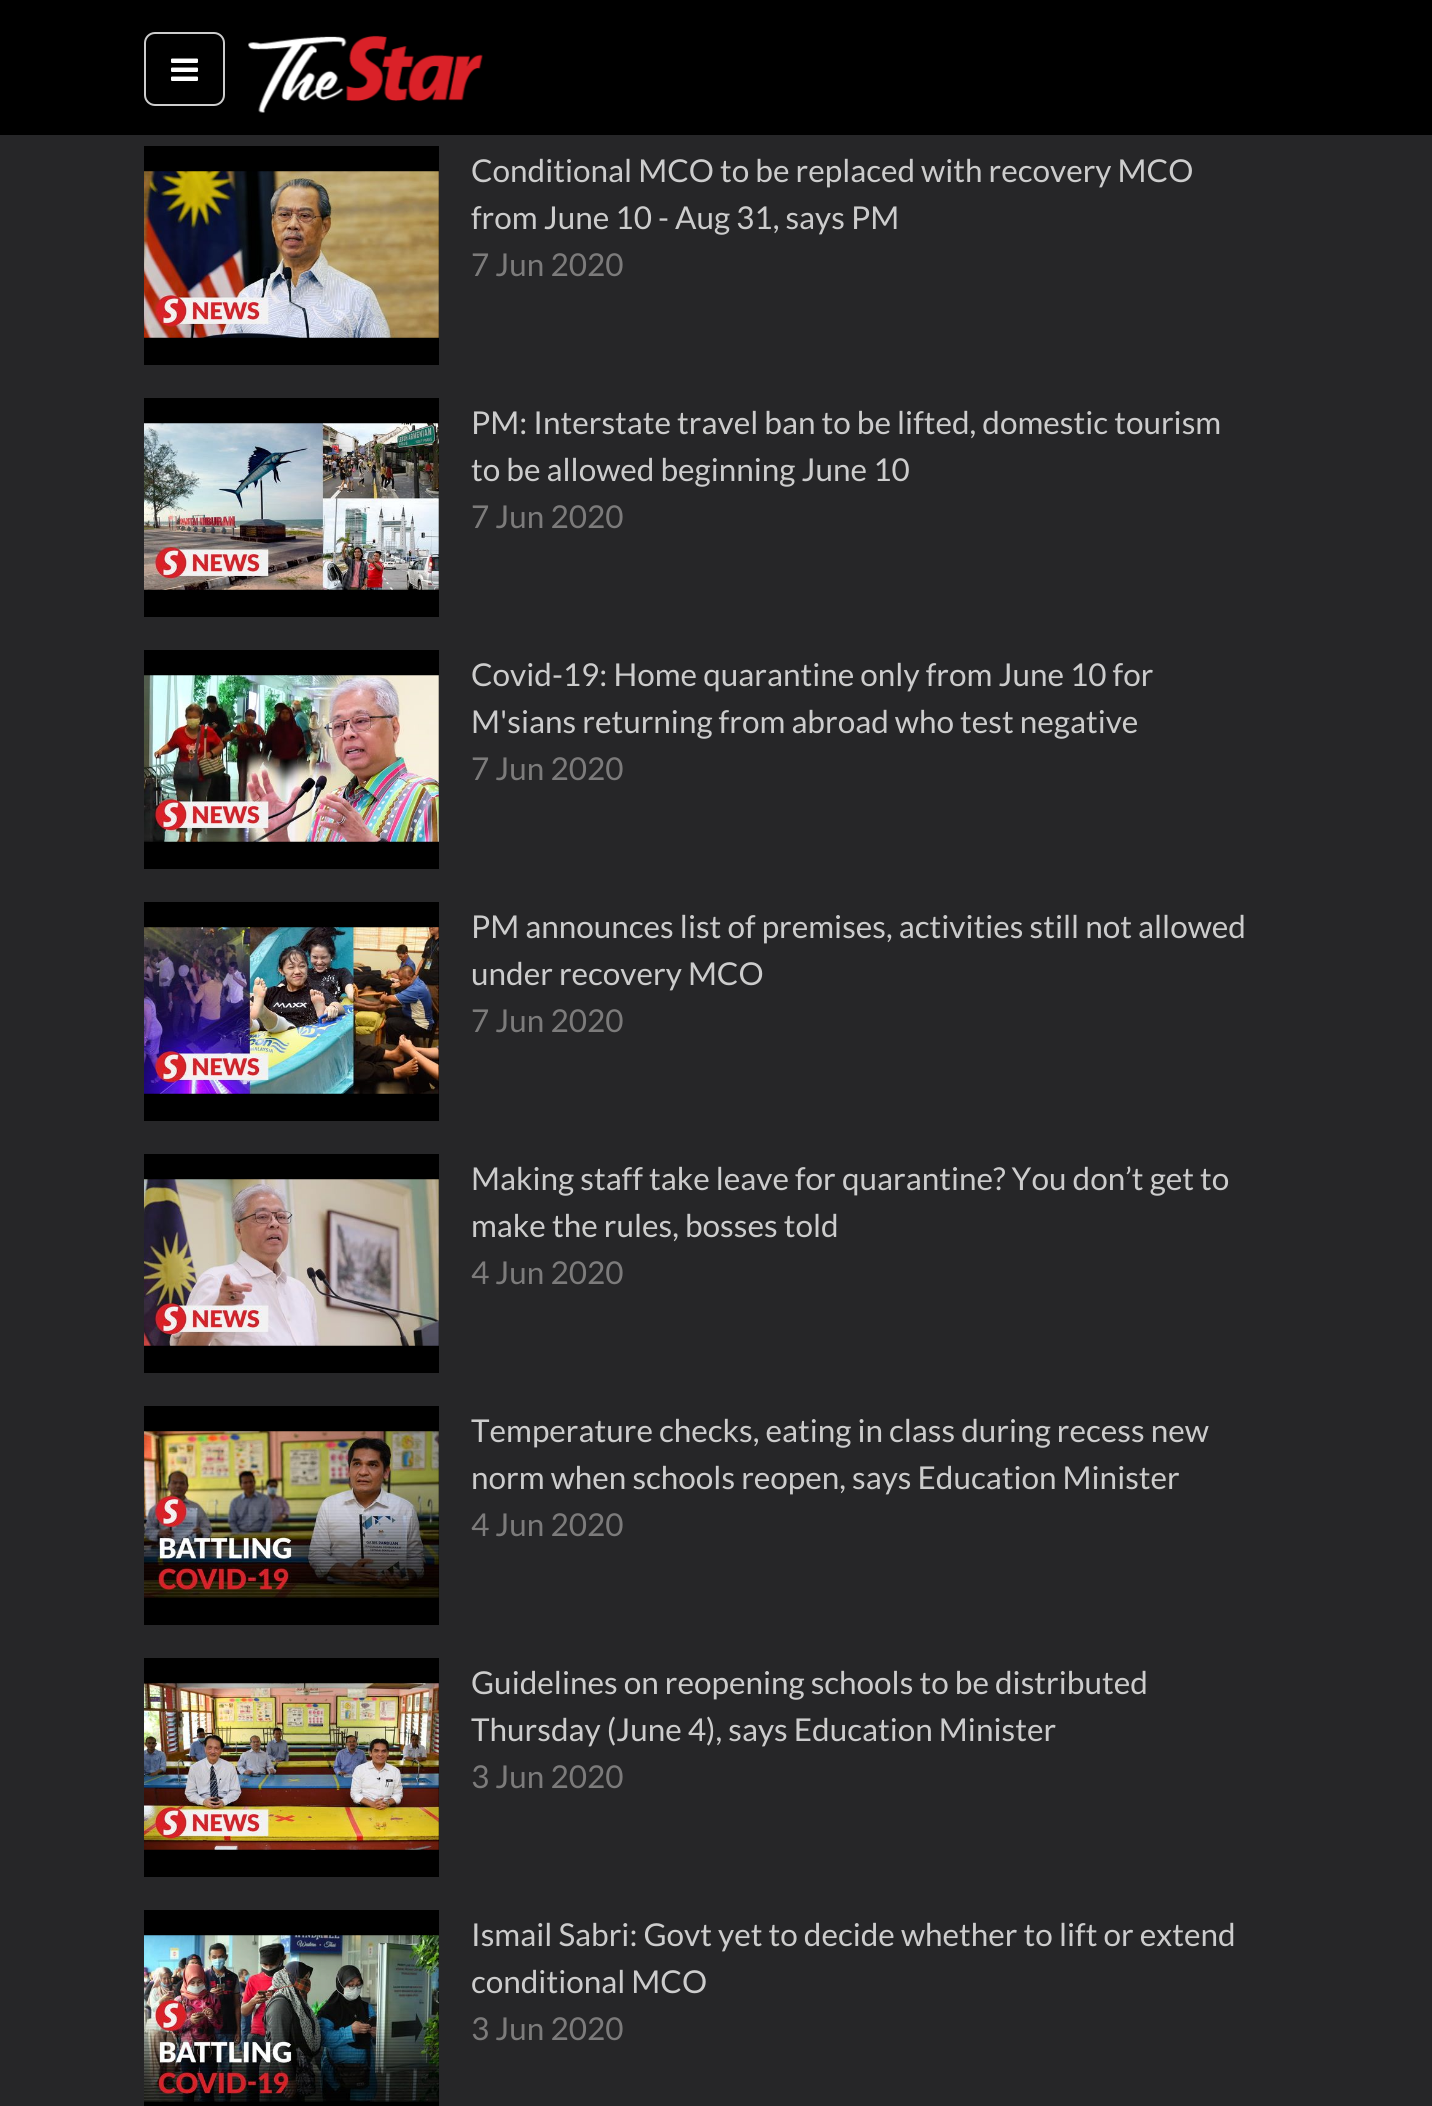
#include <cairo.h>
#include <math.h>
#include <stddef.h>


static void rgb(cairo_t *cr, int r, int g, int b)
{
	cairo_set_source_rgb(cr, r / 255.0, g / 255.0, b / 255.0);
}

static void face(cairo_t *cr, const char *family, double size, int italic, int bold)
{
	cairo_select_font_face(cr, family, italic ? CAIRO_FONT_SLANT_ITALIC : CAIRO_FONT_SLANT_NORMAL,
		bold ? CAIRO_FONT_WEIGHT_BOLD : CAIRO_FONT_WEIGHT_NORMAL);
	cairo_set_font_size(cr, size);
}

static void label(cairo_t *cr, double x, double y, const char *s)
{
	cairo_move_to(cr, x, y);
	cairo_show_text(cr, s);
}

static void rect(cairo_t *cr, double x, double y, double w, double h)
{
	cairo_rectangle(cr, x, y, w, h);
	cairo_fill(cr);
}

static void rrect(cairo_t *cr, double x, double y, double w, double h, double r)
{
	cairo_new_sub_path(cr);
	cairo_arc(cr, x + w - r, y + h - r, r, 0, M_PI / 2);
	cairo_arc(cr, x + r, y + h - r, r, M_PI / 2, M_PI);
	cairo_arc(cr, x + r, y + r, r, M_PI, 1.5 * M_PI);
	cairo_arc(cr, x + w - r, y + r, r, 1.5 * M_PI, 2 * M_PI);
	cairo_close_path(cr);
}

static void image(cairo_t *cr, const char *path, double x, double y, double w, double h)
{
	cairo_surface_t *image = cairo_image_surface_create_from_png(path);
	cairo_save(cr);
	cairo_set_source_surface(cr, image, x, y);
	cairo_rectangle(cr, x, y, w, h);
	cairo_fill(cr);
	cairo_restore(cr);
	cairo_surface_destroy(image);
}

static void draw(cairo_t *cr) {
	rgb(cr, 38, 38, 40);
	cairo_paint(cr);
	rgb(cr, 0, 0, 0);
	rect(cr, 0, 0, 1432, 135);
	rrect(cr, 145, 33, 79, 72, 10);
	rgb(cr, 204, 204, 204);
	cairo_stroke(cr);
	image(cr, "image0.png", 171, 58, 27, 23);
	image(cr, "image1.png", 248, 35, 235, 78);
	rgb(cr, 0, 0, 0);
	rect(cr, 144, 146, 295, 219);
	image(cr, "image2.png", 144, 171, 295, 167);
	face(cr, "Lato", 31.5, 0, 0);
	rgb(cr, 204, 204, 204);
	label(cr, 471, 182, "Conditional MCO to be replaced with recovery MCO");
	label(cr, 471, 229, "from June 10 - Aug 31, says PM");
	rgb(cr, 124, 123, 123);
	label(cr, 471, 276, "7 Jun 2020");
	rgb(cr, 0, 0, 0);
	rect(cr, 144, 398, 295, 219);
	image(cr, "image3.png", 144, 423, 295, 167);
	rgb(cr, 204, 204, 204);
	label(cr, 471, 434, "PM: Interstate travel ban to be lifted, domestic tourism");
	label(cr, 471, 481, "to be allowed beginning June 10");
	rgb(cr, 124, 123, 123);
	label(cr, 471, 528, "7 Jun 2020");
	rgb(cr, 0, 0, 0);
	rect(cr, 144, 650, 295, 219);
	image(cr, "image4.png", 144, 675, 295, 167);
	rgb(cr, 204, 204, 204);
	label(cr, 471, 686, "Covid-19: Home quarantine only from June 10 for");
	label(cr, 471, 733, "M'sians returning from abroad who test negative");
	rgb(cr, 124, 123, 123);
	label(cr, 471, 780, "7 Jun 2020");
	rgb(cr, 0, 0, 0);
	rect(cr, 144, 902, 295, 219);
	image(cr, "image5.png", 144, 927, 295, 167);
	rgb(cr, 204, 204, 204);
	label(cr, 471, 938, "PM announces list of premises, activities still not allowed");
	label(cr, 471, 985, "under recovery MCO");
	rgb(cr, 124, 123, 123);
	label(cr, 471, 1032, "7 Jun 2020");
	rgb(cr, 0, 0, 0);
	rect(cr, 144, 1154, 295, 219);
	image(cr, "image6.png", 144, 1179, 295, 167);
	rgb(cr, 204, 204, 204);
	label(cr, 471, 1190, "Making staff take leave for quarantine? You don’t get to");
	label(cr, 471, 1237, "make the rules, bosses told");
	rgb(cr, 124, 123, 123);
	label(cr, 471, 1284, "4 Jun 2020");
	rgb(cr, 0, 0, 0);
	rect(cr, 144, 1406, 295, 219);
	image(cr, "image7.png", 144, 1431, 295, 167);
	rgb(cr, 204, 204, 204);
	label(cr, 471, 1442, "Temperature checks, eating in class during recess new");
	label(cr, 471, 1489, "norm when schools reopen, says Education Minister");
	rgb(cr, 124, 123, 123);
	label(cr, 471, 1536, "4 Jun 2020");
	rgb(cr, 0, 0, 0);
	rect(cr, 144, 1658, 295, 219);
	image(cr, "image8.png", 144, 1683, 295, 167);
	rgb(cr, 204, 204, 204);
	label(cr, 471, 1694, "Guidelines on reopening schools to be distributed");
	label(cr, 471, 1741, "Thursday (June 4), says Education Minister");
	rgb(cr, 124, 123, 123);
	label(cr, 471, 1788, "3 Jun 2020");
	rgb(cr, 0, 0, 0);
	rect(cr, 144, 1910, 295, 196);
	image(cr, "image9.png", 144, 1935, 295, 167);
	rgb(cr, 204, 204, 204);
	label(cr, 471, 1946, "Ismail Sabri: Govt yet to decide whether to lift or extend");
	label(cr, 471, 1993, "conditional MCO");
	rgb(cr, 124, 123, 123);
	label(cr, 471, 2040, "3 Jun 2020");
}

int main(void) {
	cairo_surface_t *surface = cairo_image_surface_create(CAIRO_FORMAT_RGB24, 1432, 2106);
	cairo_t *cr = cairo_create(surface);
	cairo_font_options_t *options = cairo_font_options_create();
	cairo_font_options_set_hint_metrics(options, CAIRO_HINT_METRICS_OFF);
	cairo_font_options_set_hint_style(options, CAIRO_HINT_STYLE_NONE);
	cairo_set_font_options(cr, options);
	cairo_set_miter_limit(cr, 4);
	draw(cr);
	cairo_surface_write_to_png(surface, "render.png");
	cairo_font_options_destroy(options);
	cairo_destroy(cr);
	cairo_surface_destroy(surface);
	return 0;
}
